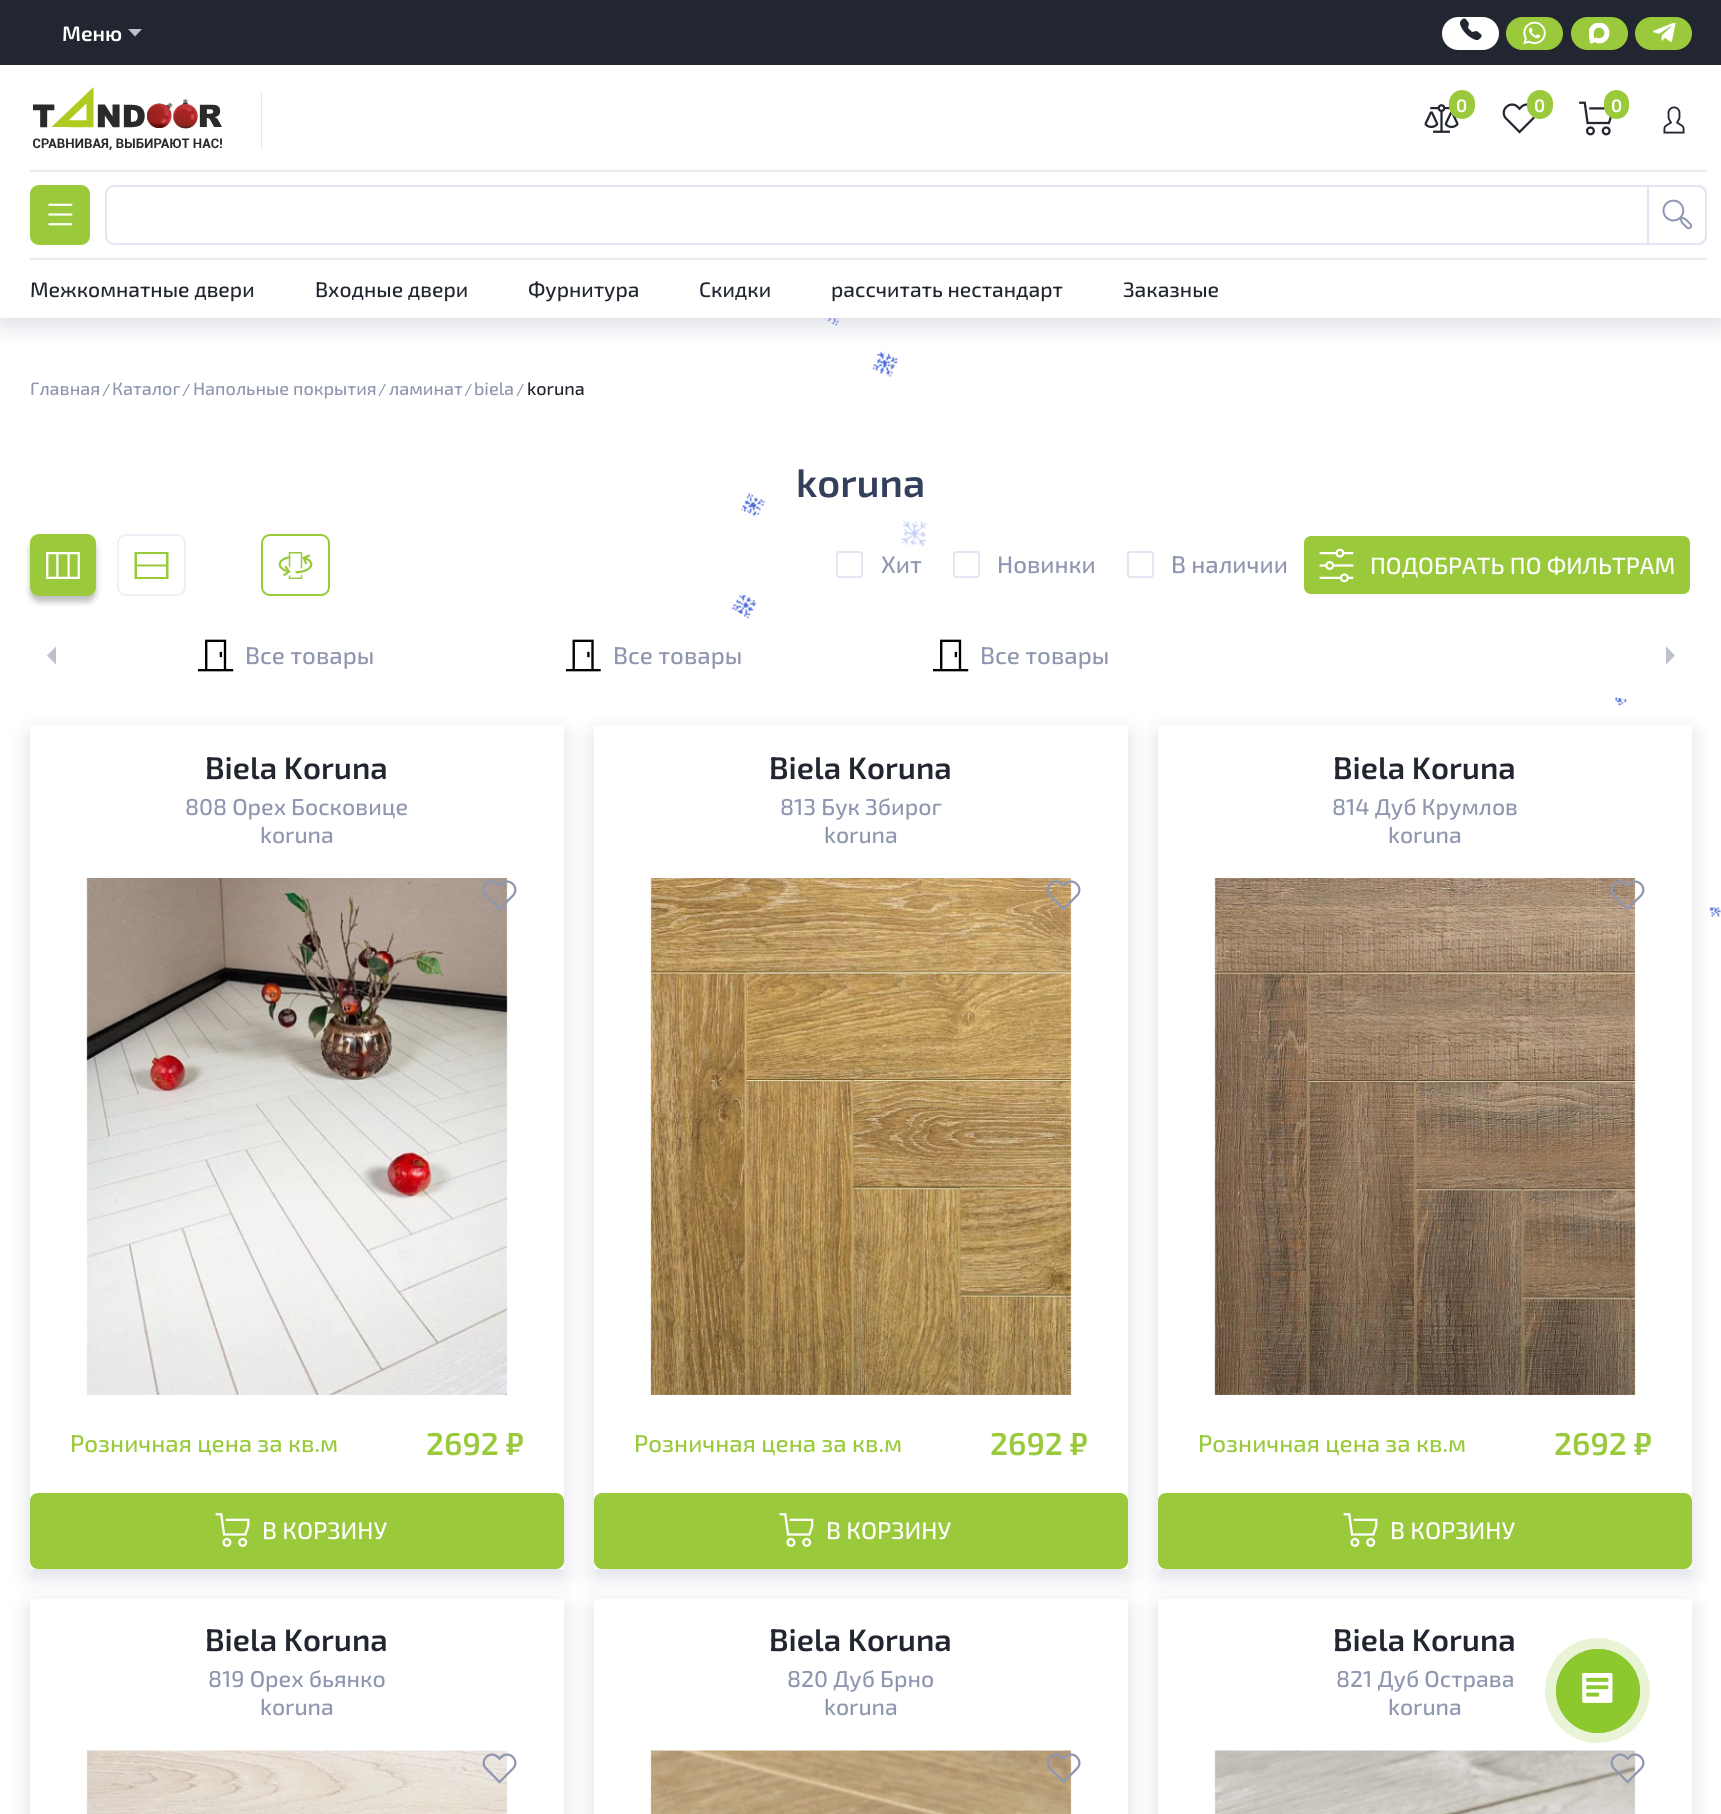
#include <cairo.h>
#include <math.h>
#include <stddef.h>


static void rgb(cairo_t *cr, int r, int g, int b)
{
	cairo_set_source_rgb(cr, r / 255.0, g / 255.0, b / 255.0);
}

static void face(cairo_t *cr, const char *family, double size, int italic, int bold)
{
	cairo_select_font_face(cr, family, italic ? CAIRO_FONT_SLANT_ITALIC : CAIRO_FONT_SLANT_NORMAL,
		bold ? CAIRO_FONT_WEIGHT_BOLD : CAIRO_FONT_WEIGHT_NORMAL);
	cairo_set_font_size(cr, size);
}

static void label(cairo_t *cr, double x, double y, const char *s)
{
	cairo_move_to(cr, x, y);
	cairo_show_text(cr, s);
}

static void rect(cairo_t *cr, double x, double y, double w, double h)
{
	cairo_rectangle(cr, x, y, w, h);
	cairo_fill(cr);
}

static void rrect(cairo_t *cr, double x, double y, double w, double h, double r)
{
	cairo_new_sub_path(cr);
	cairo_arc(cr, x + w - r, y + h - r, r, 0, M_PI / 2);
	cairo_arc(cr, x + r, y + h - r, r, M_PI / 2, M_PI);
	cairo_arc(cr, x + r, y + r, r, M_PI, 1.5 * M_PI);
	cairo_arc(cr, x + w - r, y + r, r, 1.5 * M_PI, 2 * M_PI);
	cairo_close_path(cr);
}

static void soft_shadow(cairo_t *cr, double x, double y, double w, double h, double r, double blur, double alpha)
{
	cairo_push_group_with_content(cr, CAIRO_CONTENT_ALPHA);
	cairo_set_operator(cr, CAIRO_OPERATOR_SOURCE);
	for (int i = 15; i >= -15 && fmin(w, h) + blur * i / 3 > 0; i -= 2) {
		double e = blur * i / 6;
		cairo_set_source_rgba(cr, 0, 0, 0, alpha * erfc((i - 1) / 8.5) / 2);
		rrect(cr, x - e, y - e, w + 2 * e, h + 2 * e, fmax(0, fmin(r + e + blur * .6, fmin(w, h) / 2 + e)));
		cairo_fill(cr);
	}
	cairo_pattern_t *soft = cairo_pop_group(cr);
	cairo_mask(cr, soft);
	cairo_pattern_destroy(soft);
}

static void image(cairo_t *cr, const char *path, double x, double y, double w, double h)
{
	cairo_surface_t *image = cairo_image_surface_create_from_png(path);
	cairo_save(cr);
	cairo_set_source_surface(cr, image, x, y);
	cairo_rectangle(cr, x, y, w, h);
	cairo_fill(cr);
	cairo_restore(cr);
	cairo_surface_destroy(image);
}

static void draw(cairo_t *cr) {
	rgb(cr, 255, 255, 255);
	cairo_paint(cr);
	image(cr, "image29.png", 731, 318, 990, 599);
	rgb(cr, 143, 150, 176);
	soft_shadow(cr, 0, 8, 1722, 318, 0, 11, 0.3);
	rgb(cr, 255, 255, 255);
	rect(cr, 0, 65, 1721, 253);
	rgb(cr, 34, 38, 49);
	rect(cr, 0, 0, 1721, 65);
	face(cr, "Exo 2 SemiBold", 21, 0, 0);
	rgb(cr, 255, 255, 255);
	label(cr, 62, 41, "Меню");
	rgb(cr, 189, 192, 207);
	cairo_new_path(cr);
	cairo_move_to(cr, 128, 29);
	cairo_line_to(cr, 135, 36.5);
	cairo_line_to(cr, 142, 29);
	cairo_close_path(cr);
	cairo_fill(cr);
	rgb(cr, 255, 255, 255);
	rrect(cr, 1442, 17, 57, 33, 16.5);
	cairo_fill(cr);
	image(cr, "image0.png", 1460, 18, 22, 23);
	rgb(cr, 154, 202, 60);
	rrect(cr, 1506, 17, 57, 33, 16.5);
	cairo_fill(cr);
	image(cr, "image1.png", 1523, 21, 23, 24);
	rrect(cr, 1571, 17, 57, 33, 16.5);
	cairo_fill(cr);
	image(cr, "image2.png", 1589, 23, 21, 21);
	rrect(cr, 1635, 17, 57, 33, 16.5);
	cairo_fill(cr);
	image(cr, "image3.png", 1653, 23, 23, 19);
	image(cr, "image4.png", 33, 87, 189, 63);
	rgb(cr, 227, 230, 243);
	rect(cr, 261, 92, 1, 58);
	image(cr, "image5.png", 1424, 104, 35, 29);
	rgb(cr, 154, 202, 60);
	rrect(cr, 1449, 90, 26, 29, 13);
	cairo_fill(cr);
	face(cr, "Exo 2 SemiBold", 18, 0, 0);
	rgb(cr, 255, 255, 255);
	label(cr, 1456, 112, "0");
	image(cr, "image6.png", 1502, 103, 33, 31);
	rgb(cr, 154, 202, 60);
	rrect(cr, 1527, 90, 26, 29, 13);
	cairo_fill(cr);
	rgb(cr, 255, 255, 255);
	label(cr, 1534, 112, "0");
	image(cr, "image7.png", 1579, 101, 33, 35);
	rgb(cr, 154, 202, 60);
	rrect(cr, 1604, 90, 25, 29, 12.5);
	cairo_fill(cr);
	rgb(cr, 255, 255, 255);
	label(cr, 1611, 112, "0");
	image(cr, "image8.png", 1663, 106, 22, 28);
	rgb(cr, 230, 237, 241);
	rect(cr, 30, 170, 1677, 2);
	rgb(cr, 154, 202, 60);
	rrect(cr, 31, 186, 58, 58, 8);
	cairo_fill_preserve(cr);
	cairo_stroke(cr);
	image(cr, "image9.png", 48, 203, 25, 23);
	rrect(cr, 106, 186, 1600, 58, 8);
	rgb(cr, 227, 230, 243);
	cairo_stroke(cr);
	cairo_new_path(cr);
	cairo_move_to(cr, 1648, 186);
	cairo_line_to(cr, 1698, 186);
	cairo_curve_to(cr, 1702.5, 186, 1706, 189.5, 1706, 194);
	cairo_line_to(cr, 1706, 236);
	cairo_curve_to(cr, 1706, 240.5, 1702.5, 244, 1698, 244);
	cairo_line_to(cr, 1648, 244);
	cairo_close_path(cr);
	cairo_stroke(cr);
	image(cr, "image10.png", 1662, 199, 31, 31);
	rgb(cr, 230, 237, 241);
	rect(cr, 30, 258, 1677, 2);
	face(cr, "Exo 2 Medium", 21, 0, 0);
	rgb(cr, 34, 38, 49);
	label(cr, 30, 297, "Межкомнатные двери");
	label(cr, 315, 297, "Входные двери");
	label(cr, 528, 297, "Фурнитура");
	label(cr, 699, 297, "Скидки");
	label(cr, 831, 297, "рассчитать нестандарт");
	label(cr, 1123, 297, "Заказные");
	face(cr, "Exo 2 Medium", 18, 0, 0);
	rgb(cr, 143, 150, 176);
	label(cr, 30, 395, "Главная");
	face(cr, "Exo 2 Medium", 16, 0, 0);
	label(cr, 102, 395, "/");
	face(cr, "Exo 2 Medium", 18, 0, 0);
	label(cr, 112, 395, "Каталог");
	face(cr, "Exo 2 Medium", 16, 0, 0);
	label(cr, 182, 395, "/");
	face(cr, "Exo 2 Medium", 18, 0, 0);
	label(cr, 193, 395, "Напольные покрытия");
	face(cr, "Exo 2 Medium", 16, 0, 0);
	label(cr, 378, 395, "/");
	face(cr, "Exo 2 Medium", 18, 0, 0);
	label(cr, 389, 395, "ламинат");
	face(cr, "Exo 2 Medium", 16, 0, 0);
	label(cr, 464, 395, "/");
	face(cr, "Exo 2 Medium", 18, 0, 0);
	label(cr, 474, 395, "biela");
	face(cr, "Exo 2 Medium", 16, 0, 0);
	label(cr, 516, 395, "/");
	face(cr, "Exo 2 Medium", 18, 0, 0);
	rgb(cr, 34, 38, 49);
	label(cr, 527, 395, "koruna");
	face(cr, "Exo 2 SemiBold", 39.5, 0, 0);
	rgb(cr, 52, 63, 91);
	label(cr, 796, 497, "koruna");
	rgb(cr, 0, 0, 0);
	soft_shadow(cr, 30, 540, 66, 62, 9, 3, 0.25);
	rgb(cr, 154, 202, 60);
	rrect(cr, 30, 534, 66, 62, 9);
	cairo_fill(cr);
	image(cr, "image11.png", 46, 552, 34, 27);
	rrect(cr, 118, 535, 67, 60, 8);
	rgb(cr, 238, 239, 247);
	cairo_stroke(cr);
	rgb(cr, 154, 202, 60);
	cairo_new_path(cr);
	cairo_move_to(cr, 134.5, 552);
	cairo_line_to(cr, 134.5, 579);
	cairo_line_to(cr, 168.5, 579);
	cairo_line_to(cr, 168.5, 552);
	cairo_close_path(cr);
	cairo_move_to(cr, 166, 554);
	cairo_line_to(cr, 166, 564.5);
	cairo_line_to(cr, 137, 564.5);
	cairo_line_to(cr, 137, 554);
	cairo_close_path(cr);
	cairo_move_to(cr, 137, 577);
	cairo_line_to(cr, 137, 566.5);
	cairo_line_to(cr, 166, 566.5);
	cairo_line_to(cr, 166, 577);
	cairo_close_path(cr);
	cairo_fill(cr);
	rrect(cr, 262, 535, 67, 60, 8);
	cairo_stroke(cr);
	image(cr, "image12.png", 278, 552, 35, 27);
	rrect(cr, 837, 552, 25, 25, 2);
	rgb(cr, 227, 230, 243);
	cairo_stroke(cr);
	face(cr, "Exo 2 Medium", 24, 0, 0);
	rgb(cr, 143, 150, 176);
	label(cr, 881, 573, "Хит");
	rrect(cr, 954, 552, 25, 25, 2);
	rgb(cr, 227, 230, 243);
	cairo_stroke(cr);
	rgb(cr, 143, 150, 176);
	label(cr, 997, 573, "Новинки");
	rrect(cr, 1128, 552, 25, 25, 2);
	rgb(cr, 227, 230, 243);
	cairo_stroke(cr);
	rgb(cr, 143, 150, 176);
	label(cr, 1171, 573, "В наличии");
	rgb(cr, 154, 202, 60);
	rrect(cr, 1303, 535, 388, 60, 8);
	cairo_fill_preserve(cr);
	rgb(cr, 255, 255, 255);
	cairo_stroke(cr);
	image(cr, "image13.png", 1319, 548, 35, 35);
	face(cr, "Exo 2 Medium", 23.5, 0, 0);
	label(cr, 1370, 574, "ПОДОБРАТЬ ПО ФИЛЬТРАМ");
	rgb(cr, 189, 192, 207);
	cairo_new_path(cr);
	cairo_move_to(cr, 56, 646.5);
	cairo_line_to(cr, 47, 655.5);
	cairo_line_to(cr, 56, 664.5);
	cairo_close_path(cr);
	cairo_fill(cr);
	image(cr, "image14.png", 198, 639, 36, 33);
	face(cr, "Exo 2 Medium", 24, 0, 0);
	rgb(cr, 143, 150, 176);
	label(cr, 245, 664, "Все товары");
	image(cr, "image15.png", 566, 639, 35, 33);
	label(cr, 613, 664, "Все товары");
	image(cr, "image14.png", 933, 639, 36, 33);
	label(cr, 980, 664, "Все товары");
	rgb(cr, 255, 255, 255);
	rrect(cr, 1614, 612, 78, 87, 9);
	cairo_fill(cr);
	rgb(cr, 189, 192, 207);
	cairo_new_path(cr);
	cairo_move_to(cr, 1666, 664.5);
	cairo_line_to(cr, 1675, 655.5);
	cairo_line_to(cr, 1666, 646.5);
	cairo_close_path(cr);
	cairo_fill(cr);
	rgb(cr, 143, 150, 176);
	soft_shadow(cr, 30, 734, 534, 843, 0, 11, 0.3);
	rgb(cr, 255, 255, 255);
	rect(cr, 30, 726, 534, 843);
	face(cr, "Exo 2 SemiBold", 31, 0, 0);
	rgb(cr, 34, 38, 49);
	label(cr, 205, 779, "Biela Koruna");
	face(cr, "Exo 2 Medium", 23, 0, 0);
	rgb(cr, 143, 150, 176);
	label(cr, 185, 815, "808 Орех Босковице");
	label(cr, 260, 843, "koruna");
	image(cr, "image16.png", 86, 878, 422, 517);
	image(cr, "image17.png", 482, 880, 35, 31);
	face(cr, "Exo 2 Medium", 24, 0, 0);
	rgb(cr, 154, 202, 60);
	label(cr, 70, 1452, "Розничная цена за кв.м");
	face(cr, "Exo 2 SemiBold", 31.5, 0, 0);
	label(cr, 426, 1455, "2692 ₽");
	rrect(cr, 31, 1494, 532, 74, 7);
	cairo_fill_preserve(cr);
	cairo_stroke(cr);
	image(cr, "image18.png", 215, 1513, 35, 34);
	face(cr, "Exo 2 Medium", 24, 0, 0);
	rgb(cr, 255, 255, 255);
	label(cr, 262, 1539, "В КОРЗИНУ");
	rgb(cr, 143, 150, 176);
	soft_shadow(cr, 594, 734, 534, 843, 0, 11, 0.3);
	rgb(cr, 255, 255, 255);
	rect(cr, 594, 726, 534, 843);
	face(cr, "Exo 2 SemiBold", 31, 0, 0);
	rgb(cr, 34, 38, 49);
	label(cr, 769, 779, "Biela Koruna");
	face(cr, "Exo 2 Medium", 23, 0, 0);
	rgb(cr, 143, 150, 176);
	label(cr, 780, 815, "813 Бук Збирог");
	label(cr, 824, 843, "koruna");
	image(cr, "image19.png", 650, 878, 422, 517);
	image(cr, "image20.png", 1046, 880, 35, 31);
	face(cr, "Exo 2 Medium", 24, 0, 0);
	rgb(cr, 154, 202, 60);
	label(cr, 634, 1452, "Розничная цена за кв.м");
	face(cr, "Exo 2 SemiBold", 31.5, 0, 0);
	label(cr, 990, 1455, "2692 ₽");
	rrect(cr, 595, 1494, 532, 74, 7);
	cairo_fill_preserve(cr);
	cairo_stroke(cr);
	image(cr, "image18.png", 779, 1513, 35, 34);
	face(cr, "Exo 2 Medium", 24, 0, 0);
	rgb(cr, 255, 255, 255);
	label(cr, 826, 1539, "В КОРЗИНУ");
	rgb(cr, 143, 150, 176);
	soft_shadow(cr, 1158, 734, 534, 843, 0, 11, 0.3);
	rgb(cr, 255, 255, 255);
	rect(cr, 1158, 726, 534, 843);
	face(cr, "Exo 2 SemiBold", 31, 0, 0);
	rgb(cr, 34, 38, 49);
	label(cr, 1333, 779, "Biela Koruna");
	face(cr, "Exo 2 Medium", 23, 0, 0);
	rgb(cr, 143, 150, 176);
	label(cr, 1332, 815, "814 Дуб Крумлов");
	label(cr, 1388, 843, "koruna");
	image(cr, "image21.png", 1214, 878, 422, 517);
	image(cr, "image22.png", 1610, 880, 35, 31);
	face(cr, "Exo 2 Medium", 24, 0, 0);
	rgb(cr, 154, 202, 60);
	label(cr, 1198, 1452, "Розничная цена за кв.м");
	face(cr, "Exo 2 SemiBold", 31.5, 0, 0);
	label(cr, 1554, 1455, "2692 ₽");
	rrect(cr, 1159, 1494, 532, 74, 7);
	cairo_fill_preserve(cr);
	cairo_stroke(cr);
	image(cr, "image18.png", 1343, 1513, 35, 34);
	face(cr, "Exo 2 Medium", 24, 0, 0);
	rgb(cr, 255, 255, 255);
	label(cr, 1390, 1539, "В КОРЗИНУ");
	cairo_save(cr);
	cairo_set_fill_rule(cr, CAIRO_FILL_RULE_EVEN_ODD);
	cairo_new_path(cr);
	cairo_move_to(cr, 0, 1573);
	cairo_line_to(cr, 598, 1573);
	cairo_line_to(cr, 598, 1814);
	cairo_line_to(cr, 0, 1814);
	cairo_close_path(cr);
	cairo_move_to(cr, 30, 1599);
	cairo_line_to(cr, 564, 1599);
	cairo_line_to(cr, 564, 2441);
	cairo_line_to(cr, 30, 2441);
	cairo_close_path(cr);
	cairo_clip(cr);
	rgb(cr, 143, 150, 176);
	soft_shadow(cr, 30, 1607, 534, 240, 0, 11, 0.3);
	cairo_restore(cr);
	face(cr, "Exo 2 SemiBold", 31, 0, 0);
	rgb(cr, 34, 38, 49);
	label(cr, 205, 1651, "Biela Koruna");
	face(cr, "Exo 2 Medium", 23, 0, 0);
	rgb(cr, 143, 150, 176);
	label(cr, 208, 1687, "819 Орех бьянко");
	label(cr, 260, 1715, "koruna");
	image(cr, "image23.png", 86, 1750, 422, 64);
	image(cr, "image24.png", 482, 1753, 35, 31);
	rgb(cr, 143, 150, 176);
	soft_shadow(cr, 594, 1607, 534, 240, 0, 11, 0.3);
	rgb(cr, 255, 255, 255);
	rect(cr, 594, 1599, 534, 215);
	face(cr, "Exo 2 SemiBold", 31, 0, 0);
	rgb(cr, 34, 38, 49);
	label(cr, 769, 1651, "Biela Koruna");
	face(cr, "Exo 2 Medium", 23, 0, 0);
	rgb(cr, 143, 150, 176);
	label(cr, 787, 1687, "820 Дуб Брно");
	label(cr, 824, 1715, "koruna");
	image(cr, "image25.png", 650, 1750, 422, 64);
	image(cr, "image26.png", 1046, 1753, 35, 31);
	rgb(cr, 143, 150, 176);
	soft_shadow(cr, 1158, 1607, 534, 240, 0, 11, 0.3);
	rgb(cr, 255, 255, 255);
	rect(cr, 1158, 1599, 534, 215);
	face(cr, "Exo 2 SemiBold", 31, 0, 0);
	rgb(cr, 34, 38, 49);
	label(cr, 1333, 1651, "Biela Koruna");
	face(cr, "Exo 2 Medium", 23, 0, 0);
	rgb(cr, 143, 150, 176);
	label(cr, 1336, 1687, "821 Дуб Острава");
	label(cr, 1388, 1715, "koruna");
	image(cr, "image27.png", 1214, 1750, 422, 64);
	image(cr, "image28.png", 1610, 1753, 35, 31);
	rgb(cr, 232, 244, 213);
	cairo_arc(cr, 1597.5, 1690.5, 52.5, 0, 2 * M_PI);
	cairo_fill(cr);
	cairo_arc(cr, 1598, 1691, 41.5, 0, 2 * M_PI);
	rgb(cr, 142, 200, 47);
	cairo_set_line_width(cr, 1);
	cairo_stroke(cr);
	cairo_arc(cr, 1598, 1691, 42, 0, 2 * M_PI);
	cairo_fill(cr);
	image(cr, "image30.png", 1582, 1673, 31, 30);
}

int main(void) {
	cairo_surface_t *surface = cairo_image_surface_create(CAIRO_FORMAT_RGB24, 1721, 1814);
	cairo_t *cr = cairo_create(surface);
	cairo_font_options_t *options = cairo_font_options_create();
	cairo_font_options_set_hint_metrics(options, CAIRO_HINT_METRICS_OFF);
	cairo_font_options_set_hint_style(options, CAIRO_HINT_STYLE_NONE);
	cairo_set_font_options(cr, options);
	cairo_set_miter_limit(cr, 4);
	draw(cr);
	cairo_surface_write_to_png(surface, "render.png");
	cairo_font_options_destroy(options);
	cairo_destroy(cr);
	cairo_surface_destroy(surface);
	return 0;
}
